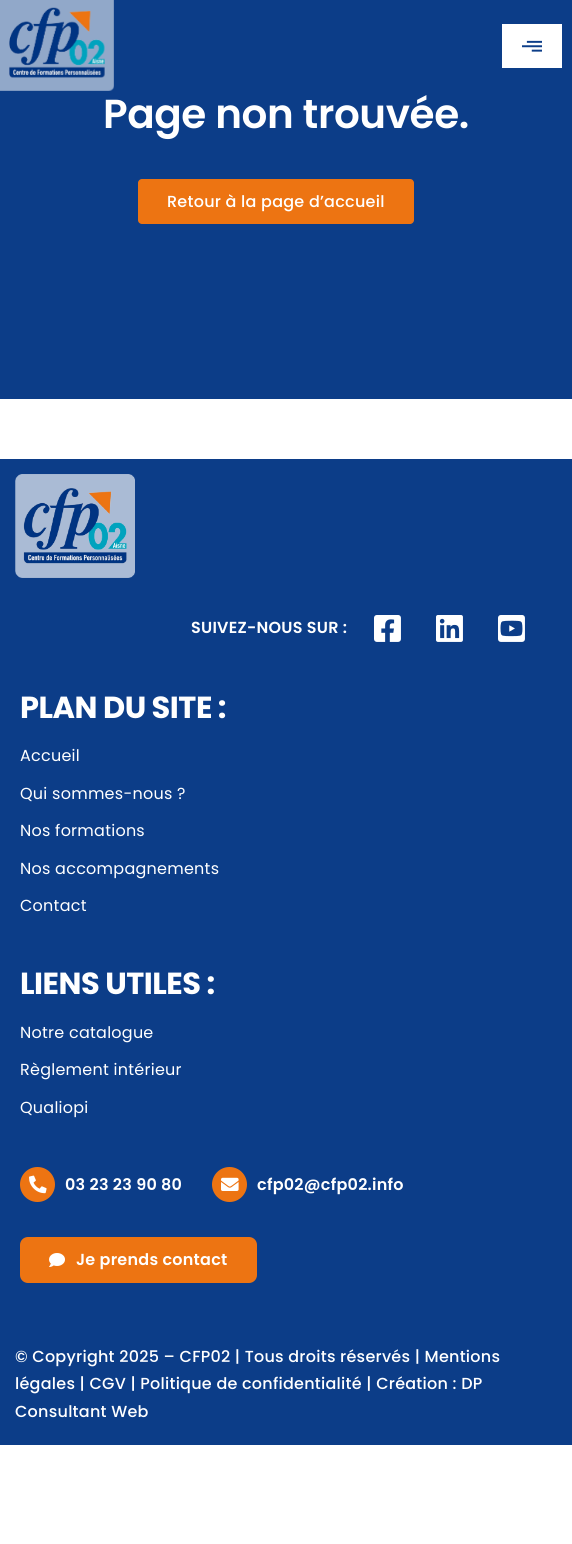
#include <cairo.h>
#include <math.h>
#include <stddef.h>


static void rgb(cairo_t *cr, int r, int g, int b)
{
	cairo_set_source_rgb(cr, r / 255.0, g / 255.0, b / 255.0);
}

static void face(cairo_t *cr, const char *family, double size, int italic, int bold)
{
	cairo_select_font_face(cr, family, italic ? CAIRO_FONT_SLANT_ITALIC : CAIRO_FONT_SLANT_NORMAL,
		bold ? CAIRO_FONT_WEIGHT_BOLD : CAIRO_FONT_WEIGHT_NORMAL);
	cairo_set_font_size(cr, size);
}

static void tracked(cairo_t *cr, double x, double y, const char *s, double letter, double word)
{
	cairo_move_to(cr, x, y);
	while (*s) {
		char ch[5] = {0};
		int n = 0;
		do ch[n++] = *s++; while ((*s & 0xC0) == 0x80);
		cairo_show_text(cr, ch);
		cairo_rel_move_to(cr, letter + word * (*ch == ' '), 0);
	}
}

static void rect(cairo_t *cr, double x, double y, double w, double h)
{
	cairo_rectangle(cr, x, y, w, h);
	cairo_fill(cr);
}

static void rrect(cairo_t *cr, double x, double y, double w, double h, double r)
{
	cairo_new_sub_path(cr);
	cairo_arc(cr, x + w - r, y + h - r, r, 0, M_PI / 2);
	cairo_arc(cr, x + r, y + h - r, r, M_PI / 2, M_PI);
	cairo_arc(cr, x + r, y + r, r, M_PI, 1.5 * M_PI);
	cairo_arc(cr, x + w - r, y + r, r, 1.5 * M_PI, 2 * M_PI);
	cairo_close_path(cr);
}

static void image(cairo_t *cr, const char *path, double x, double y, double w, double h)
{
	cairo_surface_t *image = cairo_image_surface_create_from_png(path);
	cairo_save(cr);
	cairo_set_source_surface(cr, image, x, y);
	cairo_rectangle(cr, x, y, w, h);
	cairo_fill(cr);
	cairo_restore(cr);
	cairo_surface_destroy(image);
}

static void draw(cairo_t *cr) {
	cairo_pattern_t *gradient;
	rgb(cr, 255, 255, 255);
	cairo_paint(cr);
	rgb(cr, 12, 61, 136);
	rect(cr, 0, 0, 572, 399);
	image(cr, "image0.png", 0, 0, 114, 91);
	rgb(cr, 255, 255, 255);
	rect(cr, 502, 24, 60, 44);
	image(cr, "image1.png", 522, 40, 20, 12);
	face(cr, "Poppins SemiBold", 40.5, 0, 0);
	tracked(cr, 103, 128, "Page non trouvée.", -0.4, 0);
	rgb(cr, 237, 116, 18);
	rrect(cr, 138, 179, 276, 45, 4);
	cairo_fill(cr);
	face(cr, "Poppins Medium", 16, 0, 0);
	rgb(cr, 255, 255, 255);
	tracked(cr, 167, 207, "Retour à la page d’accueil", 0.25, 0);
	rgb(cr, 12, 61, 136);
	rect(cr, 343, 459, 229, 200);
	gradient = cairo_pattern_create_linear(-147, 823, 490, 1081);
	cairo_pattern_add_color_stop_rgba(gradient, 0.69, 0.047, 0.239, 0.533, 1);
	cairo_pattern_add_color_stop_rgba(gradient, 0.69, 0.098, 0.278, 0.557, 1);
	cairo_set_source(cr, gradient);
	cairo_pattern_destroy(gradient);
	rect(cr, 0, 459, 343, 200);
	image(cr, "image2.png", 15, 474, 120, 104);
	face(cr, "Poppins SemiBold", 16, 0, 0);
	rgb(cr, 255, 255, 255);
	tracked(cr, 191, 633, "SUIVEZ-NOUS SUR :", 0.25, 0);
	image(cr, "image3.png", 374, 615, 27, 27);
	image(cr, "image4.png", 436, 615, 27, 27);
	image(cr, "image5.png", 498, 615, 27, 27);
	rgb(cr, 12, 61, 136);
	rect(cr, 0, 659, 572, 786);
	face(cr, "Poppins", 30.5, 0, 1);
	rgb(cr, 255, 255, 255);
	tracked(cr, 20, 718, "PLAN DU SITE :", -0.5, 0);
	face(cr, "Poppins", 16, 0, 0);
	tracked(cr, 20, 761, "Accueil", 0.25, 0);
	tracked(cr, 20, 799, "Qui sommes-nous ?", 0.25, 0);
	tracked(cr, 20, 836, "Nos formations", 0.25, 0);
	tracked(cr, 20, 874, "Nos accompagnements", 0.25, 0);
	tracked(cr, 20, 911, "Contact", 0.25, 0);
	face(cr, "Poppins", 30.5, 0, 1);
	tracked(cr, 20, 994, "LIENS UTILES :", -0.5, 0);
	face(cr, "Poppins", 16, 0, 0);
	tracked(cr, 20, 1038, "Notre catalogue", 0.25, 0);
	tracked(cr, 20, 1075, "Règlement intérieur", 0.25, 0);
	tracked(cr, 20, 1113, "Qualiopi", 0.25, 0);
	rgb(cr, 237, 116, 18);
	cairo_new_path(cr);
	cairo_arc(cr, 37.5, 1184.5, 17.5, 0, 2 * M_PI);
	cairo_fill(cr);
	image(cr, "image6.png", 29, 1175, 18, 19);
	face(cr, "Poppins SemiBold", 16, 0, 0);
	rgb(cr, 255, 255, 255);
	tracked(cr, 65, 1190, "03 23 23 90 80", 0.25, 0);
	rgb(cr, 237, 116, 18);
	cairo_new_path(cr);
	cairo_arc(cr, 229.5, 1184.5, 17.5, 0, 2 * M_PI);
	cairo_fill(cr);
	image(cr, "image7.png", 221, 1177, 18, 14);
	rgb(cr, 255, 255, 255);
	tracked(cr, 257, 1190, "cfp02@cfp02.info", 0.25, 0);
	rgb(cr, 237, 116, 18);
	rrect(cr, 20, 1237, 237, 46, 8);
	cairo_fill(cr);
	image(cr, "image8.png", 49, 1253, 16, 14);
	rgb(cr, 255, 255, 255);
	tracked(cr, 76, 1265, "Je prends contact", 0.25, 0);
	face(cr, "Poppins Medium", 16, 0, 0);
	tracked(cr, 15, 1362, "© Copyright 2025 – CFP02 | Tous droits réservés | Mentions", 0.25, 0);
	tracked(cr, 15, 1389, "légales | CGV | Politique de confidentialité | Création : DP", 0.25, 0);
	tracked(cr, 15, 1417, "Consultant Web", 0.25, 0);
}

int main(void) {
	cairo_surface_t *surface = cairo_image_surface_create(CAIRO_FORMAT_RGB24, 572, 1544);
	cairo_t *cr = cairo_create(surface);
	cairo_font_options_t *options = cairo_font_options_create();
	cairo_font_options_set_hint_metrics(options, CAIRO_HINT_METRICS_OFF);
	cairo_font_options_set_hint_style(options, CAIRO_HINT_STYLE_NONE);
	cairo_set_font_options(cr, options);
	cairo_set_miter_limit(cr, 4);
	draw(cr);
	cairo_surface_write_to_png(surface, "render.png");
	cairo_font_options_destroy(options);
	cairo_destroy(cr);
	cairo_surface_destroy(surface);
	return 0;
}
